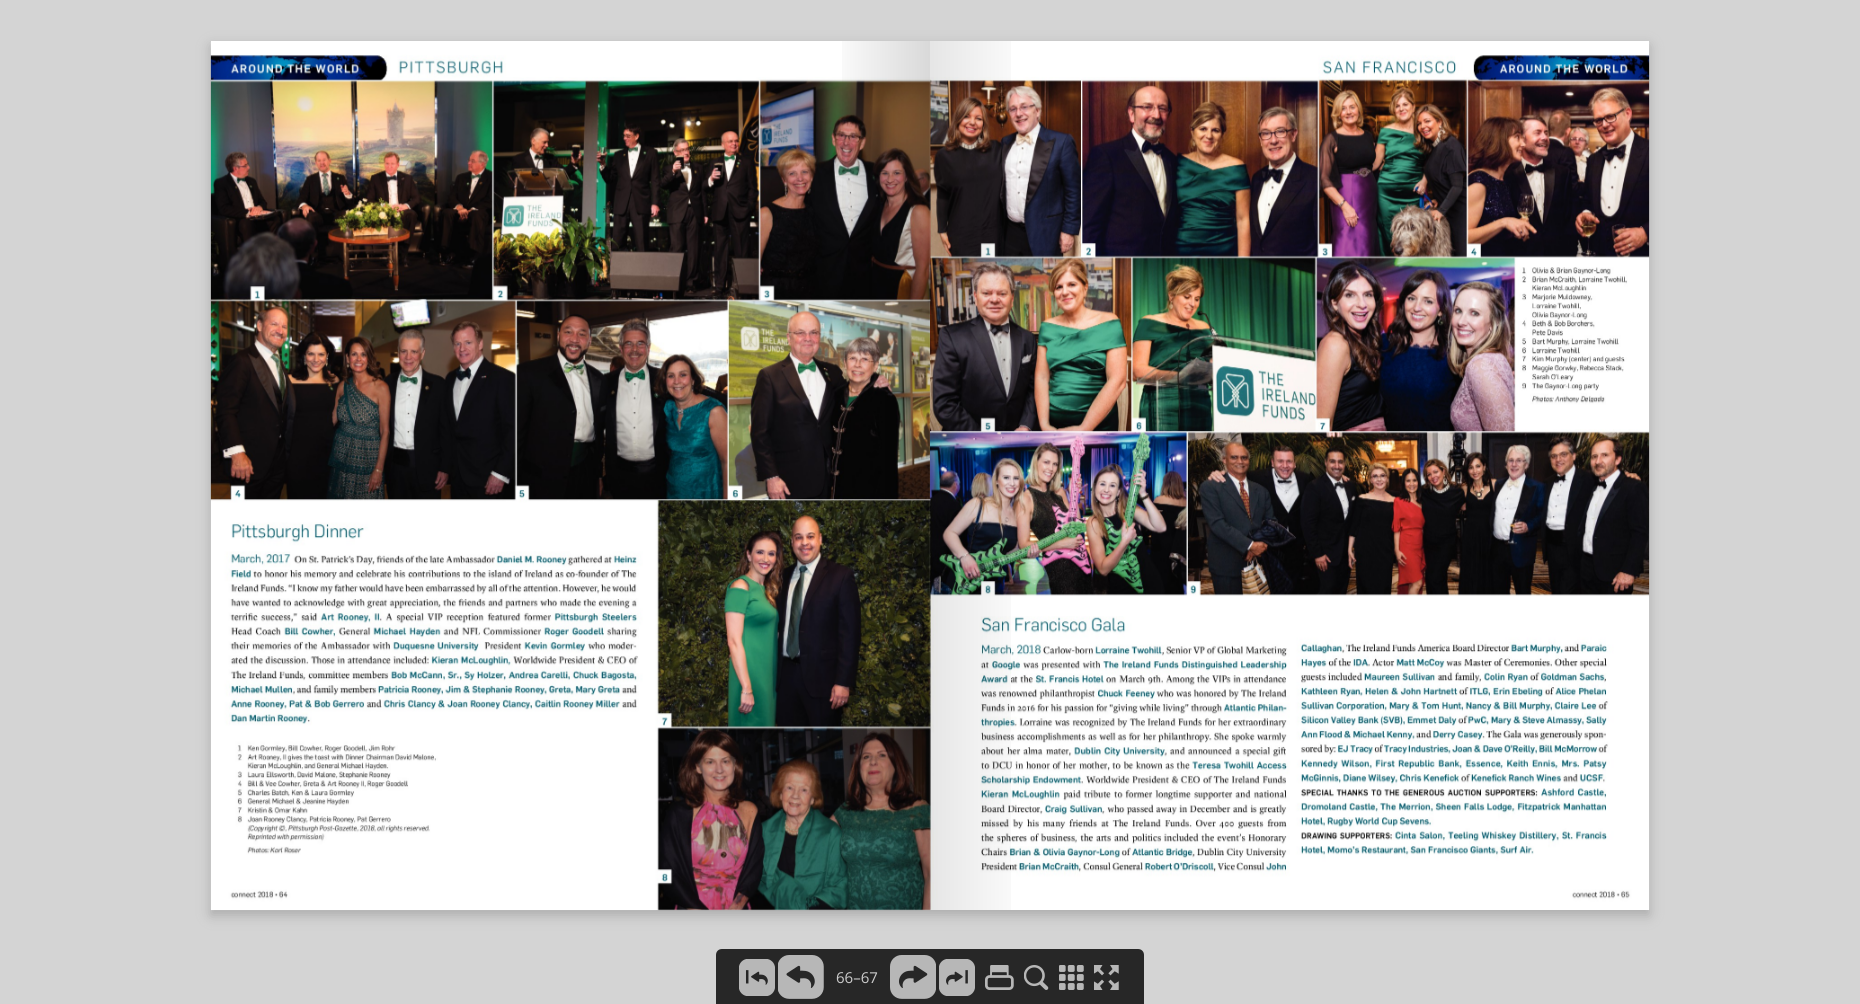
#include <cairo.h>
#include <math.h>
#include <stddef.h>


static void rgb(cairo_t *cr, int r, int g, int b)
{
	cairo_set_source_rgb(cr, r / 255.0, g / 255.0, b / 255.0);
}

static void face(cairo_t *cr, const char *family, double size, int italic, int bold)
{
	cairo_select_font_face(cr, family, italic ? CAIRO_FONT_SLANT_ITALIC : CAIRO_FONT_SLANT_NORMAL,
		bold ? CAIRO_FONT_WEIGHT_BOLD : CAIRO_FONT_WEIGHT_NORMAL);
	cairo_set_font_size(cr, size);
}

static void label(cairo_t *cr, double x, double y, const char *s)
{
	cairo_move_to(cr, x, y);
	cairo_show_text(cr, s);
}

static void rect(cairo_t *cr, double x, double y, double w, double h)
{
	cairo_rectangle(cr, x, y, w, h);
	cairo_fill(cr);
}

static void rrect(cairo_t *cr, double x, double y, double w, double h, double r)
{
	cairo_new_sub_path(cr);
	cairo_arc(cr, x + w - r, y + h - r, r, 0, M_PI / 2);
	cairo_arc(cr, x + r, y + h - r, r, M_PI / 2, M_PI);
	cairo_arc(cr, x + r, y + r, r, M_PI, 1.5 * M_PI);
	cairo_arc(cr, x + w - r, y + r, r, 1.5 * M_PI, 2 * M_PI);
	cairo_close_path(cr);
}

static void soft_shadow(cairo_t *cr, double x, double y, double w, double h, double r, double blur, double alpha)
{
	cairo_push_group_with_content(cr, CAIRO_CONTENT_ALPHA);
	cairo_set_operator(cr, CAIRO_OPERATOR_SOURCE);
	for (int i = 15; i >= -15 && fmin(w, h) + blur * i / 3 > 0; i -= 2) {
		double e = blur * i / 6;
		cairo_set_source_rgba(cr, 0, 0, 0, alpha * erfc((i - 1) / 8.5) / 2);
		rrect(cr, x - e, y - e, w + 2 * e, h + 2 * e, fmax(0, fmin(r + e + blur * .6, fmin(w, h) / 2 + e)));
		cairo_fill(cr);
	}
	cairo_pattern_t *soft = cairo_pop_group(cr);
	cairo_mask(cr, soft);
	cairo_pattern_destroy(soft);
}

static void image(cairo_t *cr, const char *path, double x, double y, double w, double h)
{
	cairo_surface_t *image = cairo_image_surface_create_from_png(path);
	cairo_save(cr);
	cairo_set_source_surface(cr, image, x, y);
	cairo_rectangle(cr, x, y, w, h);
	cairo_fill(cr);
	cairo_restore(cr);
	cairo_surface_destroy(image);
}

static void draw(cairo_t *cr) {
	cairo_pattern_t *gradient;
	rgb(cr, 212, 212, 212);
	cairo_paint(cr);
	rgb(cr, 170, 170, 170);
	soft_shadow(cr, 211, 46, 1438, 869, 0, 6.5, 1);
	rgb(cr, 255, 255, 255);
	rect(cr, 211, 41, 1438, 869);
	image(cr, "image0.png", 210, 42, 720, 869);
	gradient = cairo_pattern_create_linear(827, 476, 930, 476);
	cairo_pattern_add_color_stop_rgba(gradient, 0, 0, 0, 0, 0);
	cairo_pattern_add_color_stop_rgba(gradient, 1, 0, 0, 0, 0.15);
	cairo_set_source(cr, gradient);
	cairo_pattern_destroy(gradient);
	rect(cr, 842, 41, 88, 869);
	image(cr, "image1.png", 930, 42, 720, 868);
	gradient = cairo_pattern_create_linear(930, 476, 1033, 476);
	cairo_pattern_add_color_stop_rgba(gradient, 0, 0, 0, 0, 0.1);
	cairo_pattern_add_color_stop_rgba(gradient, 1, 0, 0, 0, 0);
	cairo_set_source(cr, gradient);
	cairo_pattern_destroy(gradient);
	rect(cr, 930, 41, 81, 869);
	rgb(cr, 39, 39, 39);
	cairo_new_path(cr);
	cairo_move_to(cr, 722, 949);
	cairo_line_to(cr, 1138, 949);
	cairo_curve_to(cr, 1141.5, 949, 1144, 951.5, 1144, 955);
	cairo_line_to(cr, 1144, 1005);
	cairo_line_to(cr, 716, 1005);
	cairo_line_to(cr, 716, 955);
	cairo_curve_to(cr, 716, 951.5, 718.5, 949, 722, 949);
	cairo_close_path(cr);
	cairo_fill(cr);
	image(cr, "image2.png", 739, 959, 36, 37);
	image(cr, "image3.png", 778, 955, 46, 44);
	face(cr, "Open Sans", 15, 0, 0);
	rgb(cr, 204, 204, 204);
	label(cr, 836, 983, "66–67");
	image(cr, "image4.png", 890, 955, 46, 44);
	image(cr, "image5.png", 939, 959, 36, 37);
	image(cr, "image6.png", 985, 965, 29, 25);
	image(cr, "image7.png", 1024, 965, 25, 25);
	image(cr, "image8.png", 1059, 965, 25, 25);
	image(cr, "image9.png", 1094, 965, 25, 25);
}

int main(void) {
	cairo_surface_t *surface = cairo_image_surface_create(CAIRO_FORMAT_RGB24, 1860, 1004);
	cairo_t *cr = cairo_create(surface);
	cairo_font_options_t *options = cairo_font_options_create();
	cairo_font_options_set_hint_metrics(options, CAIRO_HINT_METRICS_OFF);
	cairo_font_options_set_hint_style(options, CAIRO_HINT_STYLE_NONE);
	cairo_set_font_options(cr, options);
	cairo_set_miter_limit(cr, 4);
	draw(cr);
	cairo_surface_write_to_png(surface, "render.png");
	cairo_font_options_destroy(options);
	cairo_destroy(cr);
	cairo_surface_destroy(surface);
	return 0;
}
